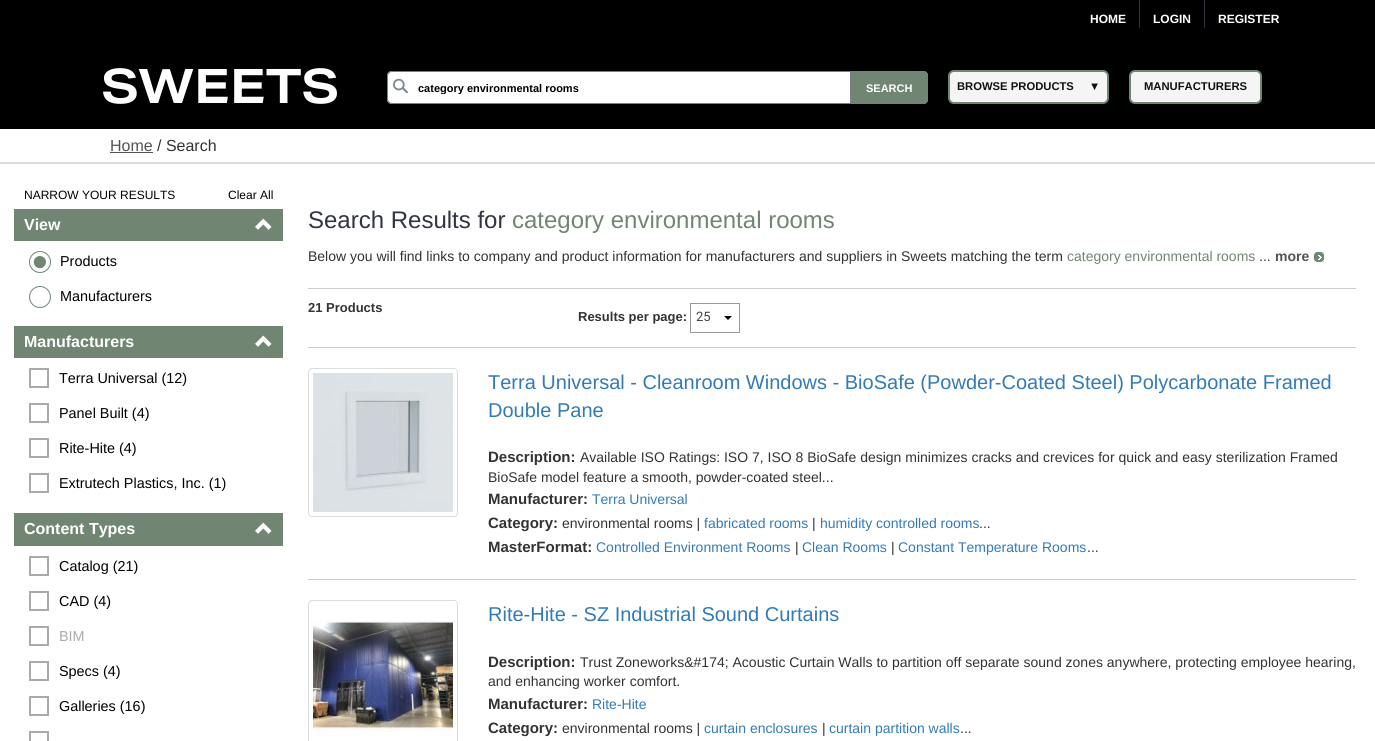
#include <cairo.h>
#include <math.h>
#include <stddef.h>


static void rgb(cairo_t *cr, int r, int g, int b)
{
	cairo_set_source_rgb(cr, r / 255.0, g / 255.0, b / 255.0);
}

static void face(cairo_t *cr, const char *family, double size, int italic, int bold)
{
	cairo_select_font_face(cr, family, italic ? CAIRO_FONT_SLANT_ITALIC : CAIRO_FONT_SLANT_NORMAL,
		bold ? CAIRO_FONT_WEIGHT_BOLD : CAIRO_FONT_WEIGHT_NORMAL);
	cairo_set_font_size(cr, size);
}

static void label(cairo_t *cr, double x, double y, const char *s)
{
	cairo_move_to(cr, x, y);
	cairo_show_text(cr, s);
}

static void rect(cairo_t *cr, double x, double y, double w, double h)
{
	cairo_rectangle(cr, x, y, w, h);
	cairo_fill(cr);
}

static void rrect(cairo_t *cr, double x, double y, double w, double h, double r)
{
	cairo_new_sub_path(cr);
	cairo_arc(cr, x + w - r, y + h - r, r, 0, M_PI / 2);
	cairo_arc(cr, x + r, y + h - r, r, M_PI / 2, M_PI);
	cairo_arc(cr, x + r, y + r, r, M_PI, 1.5 * M_PI);
	cairo_arc(cr, x + w - r, y + r, r, 1.5 * M_PI, 2 * M_PI);
	cairo_close_path(cr);
}

static void image(cairo_t *cr, const char *path, double x, double y, double w, double h)
{
	cairo_surface_t *image = cairo_image_surface_create_from_png(path);
	cairo_save(cr);
	cairo_set_source_surface(cr, image, x, y);
	cairo_rectangle(cr, x, y, w, h);
	cairo_fill(cr);
	cairo_restore(cr);
	cairo_surface_destroy(image);
}

static void draw(cairo_t *cr) {
	rgb(cr, 255, 255, 255);
	cairo_paint(cr);
	rgb(cr, 0, 0, 0);
	rect(cr, 0, 0, 1375, 129);
	face(cr, "Liberation Sans", 12, 0, 1);
	rgb(cr, 255, 255, 255);
	label(cr, 1090, 23, "HOME");
	rgb(cr, 49, 52, 66);
	rect(cr, 1139, 0, 1, 28);
	rgb(cr, 255, 255, 255);
	label(cr, 1153, 23, "LOGIN");
	rgb(cr, 49, 52, 66);
	rect(cr, 1204, 0, 1, 28);
	rgb(cr, 255, 255, 255);
	label(cr, 1218, 23, "REGISTER");
	image(cr, "image0.png", 103, 68, 234, 36);
	rrect(cr, 387, 71, 541, 33, 5);
	cairo_fill(cr);
	image(cr, "image1.png", 393, 78, 15, 16);
	rrect(cr, 387.5, 71.5, 540, 32, 4.5);
	rgb(cr, 122, 125, 132);
	cairo_set_line_width(cr, 1);
	cairo_stroke(cr);
	cairo_save(cr);
	cairo_rectangle(cr, 418, 82, 499, 12);
	cairo_clip(cr);
	face(cr, "Liberation Sans", 11, 0, 1);
	rgb(cr, 0, 0, 0);
	label(cr, 418, 92, "category environmental rooms");
	cairo_restore(cr);
	rgb(cr, 112, 134, 114);
	cairo_new_path(cr);
	cairo_move_to(cr, 850.5, 71.5);
	cairo_line_to(cr, 923, 71.5);
	cairo_curve_to(cr, 925.5, 71.5, 927.5, 73.5, 927.5, 76);
	cairo_line_to(cr, 927.5, 99);
	cairo_curve_to(cr, 927.5, 101.5, 925.5, 103.5, 923, 103.5);
	cairo_line_to(cr, 850.5, 103.5);
	cairo_close_path(cr);
	cairo_fill_preserve(cr);
	rgb(cr, 122, 125, 132);
	cairo_stroke(cr);
	face(cr, "Liberation Sans", 11, 0, 1);
	rgb(cr, 255, 255, 255);
	label(cr, 866, 92, "SEARCH");
	rgb(cr, 245, 245, 245);
	rrect(cr, 949, 71, 159, 32, 5);
	cairo_fill_preserve(cr);
	rgb(cr, 112, 134, 114);
	cairo_set_line_width(cr, 2);
	cairo_stroke(cr);
	face(cr, "Liberation Sans", 11.25, 0, 1);
	rgb(cr, 17, 17, 17);
	label(cr, 957, 90, "BROWSE PRODUCTS");
	label(cr, 1089, 90, "▼");
	rgb(cr, 245, 245, 245);
	rrect(cr, 1130, 71, 131, 32, 5);
	cairo_fill_preserve(cr);
	rgb(cr, 112, 134, 114);
	cairo_stroke(cr);
	rgb(cr, 17, 17, 17);
	label(cr, 1144, 90, "MANUFACTURERS");
	rgb(cr, 226, 219, 219);
	rect(cr, 0, 162, 1375, 2);
	face(cr, "Liberation Sans", 16, 0, 0);
	rgb(cr, 81, 83, 88);
	label(cr, 110, 151, "Home");
	rect(cr, 110, 152, 43, 1);
	rgb(cr, 51, 51, 51);
	label(cr, 157, 151, "/ Search");
	face(cr, "Liberation Sans", 12, 0, 0);
	rgb(cr, 0, 0, 0);
	label(cr, 24, 199, "NARROW YOUR RESULTS");
	label(cr, 228, 199, "Clear All");
	rgb(cr, 112, 134, 114);
	rect(cr, 14, 209, 269, 32);
	face(cr, "Liberation Sans", 16, 0, 1);
	rgb(cr, 255, 255, 255);
	label(cr, 24, 230, "View");
	image(cr, "image2.png", 255, 218, 17, 12);
	cairo_arc(cr, 40, 262, 10.5, 0, 2 * M_PI);
	rgb(cr, 112, 134, 114);
	cairo_set_line_width(cr, 1);
	cairo_stroke(cr);
	face(cr, "Liberation Sans", 45, 0, 0);
	label(cr, 32, 277, "•");
	face(cr, "Liberation Sans", 14.4, 0, 0);
	rgb(cr, 0, 0, 0);
	label(cr, 60, 266, "Products");
	cairo_new_path(cr);
	cairo_arc(cr, 40, 297, 10.5, 0, 2 * M_PI);
	rgb(cr, 112, 134, 114);
	cairo_stroke(cr);
	rgb(cr, 0, 0, 0);
	label(cr, 60, 301, "Manufacturers");
	rgb(cr, 112, 134, 114);
	rect(cr, 14, 326, 269, 32);
	face(cr, "Liberation Sans", 16, 0, 1);
	rgb(cr, 255, 255, 255);
	label(cr, 24, 347, "Manufacturers");
	image(cr, "image2.png", 255, 335, 17, 12);
	cairo_rectangle(cr, 30, 369, 18, 18);
	rgb(cr, 170, 170, 170);
	cairo_set_line_width(cr, 2);
	cairo_stroke(cr);
	face(cr, "Liberation Sans", 14.4, 0, 0);
	rgb(cr, 0, 0, 0);
	label(cr, 59, 383, "Terra Universal (12)");
	cairo_rectangle(cr, 30, 404, 18, 18);
	rgb(cr, 170, 170, 170);
	cairo_stroke(cr);
	rgb(cr, 0, 0, 0);
	label(cr, 59, 418, "Panel Built (4)");
	cairo_rectangle(cr, 30, 439, 18, 18);
	rgb(cr, 170, 170, 170);
	cairo_stroke(cr);
	rgb(cr, 0, 0, 0);
	label(cr, 59, 453, "Rite-Hite (4)");
	cairo_rectangle(cr, 30, 474, 18, 18);
	rgb(cr, 170, 170, 170);
	cairo_stroke(cr);
	rgb(cr, 0, 0, 0);
	label(cr, 59, 488, "Extrutech Plastics, Inc. (1)");
	rgb(cr, 112, 134, 114);
	rect(cr, 14, 513, 269, 33);
	face(cr, "Liberation Sans", 16, 0, 1);
	rgb(cr, 255, 255, 255);
	label(cr, 24, 534, "Content Types");
	image(cr, "image2.png", 255, 522, 17, 12);
	cairo_rectangle(cr, 30, 557, 18, 18);
	rgb(cr, 170, 170, 170);
	cairo_stroke(cr);
	face(cr, "Liberation Sans", 14.4, 0, 0);
	rgb(cr, 0, 0, 0);
	label(cr, 59, 571, "Catalog (21)");
	cairo_rectangle(cr, 30, 592, 18, 18);
	rgb(cr, 170, 170, 170);
	cairo_stroke(cr);
	rgb(cr, 0, 0, 0);
	label(cr, 59, 606, "CAD (4)");
	cairo_rectangle(cr, 30, 627, 18, 18);
	rgb(cr, 170, 170, 170);
	cairo_stroke(cr);
	label(cr, 59, 641, "BIM");
	cairo_rectangle(cr, 30, 662, 18, 18);
	cairo_stroke(cr);
	rgb(cr, 0, 0, 0);
	label(cr, 59, 676, "Specs (4)");
	cairo_rectangle(cr, 30, 697, 18, 18);
	rgb(cr, 170, 170, 170);
	cairo_stroke(cr);
	rgb(cr, 0, 0, 0);
	label(cr, 59, 711, "Galleries (16)");
	cairo_rectangle(cr, 30, 732, 18, 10);
	rgb(cr, 170, 170, 170);
	cairo_stroke(cr);
	face(cr, "Liberation Sans", 24, 0, 0);
	rgb(cr, 49, 52, 66);
	label(cr, 308, 228, "Search Results for");
	rgb(cr, 112, 134, 114);
	label(cr, 512, 228, "category environmental rooms");
	face(cr, "Liberation Sans", 14, 0, 0);
	rgb(cr, 51, 51, 51);
	label(cr, 308, 261, "Below you will find links to company and product information for manufacturers and suppliers in Sweets matching the term");
	rgb(cr, 112, 134, 114);
	label(cr, 1067, 261, "category environmental rooms");
	rgb(cr, 51, 51, 51);
	label(cr, 1259, 261, "...");
	face(cr, "Liberation Sans", 14, 0, 1);
	rgb(cr, 81, 83, 88);
	label(cr, 1275, 261, "more");
	image(cr, "image3.png", 1314, 252, 10, 10);
	rgb(cr, 204, 204, 204);
	rect(cr, 308, 288, 1048, 1);
	face(cr, "Liberation Sans", 13, 0, 1);
	rgb(cr, 51, 51, 51);
	label(cr, 308, 312, "21 Products");
	label(cr, 578, 321, "Results per page:");
	cairo_rectangle(cr, 690.5, 303.5, 49, 29);
	rgb(cr, 153, 153, 153);
	cairo_set_line_width(cr, 1);
	cairo_stroke(cr);
	face(cr, "Roboto", 13, 0, 0);
	rgb(cr, 67, 67, 67);
	label(cr, 696, 321, "25");
	rgb(cr, 0, 0, 0);
	cairo_new_path(cr);
	cairo_move_to(cr, 724, 316);
	cairo_line_to(cr, 732, 316);
	cairo_line_to(cr, 728, 320);
	cairo_close_path(cr);
	cairo_fill(cr);
	rgb(cr, 204, 204, 204);
	rect(cr, 308, 347, 1048, 1);
	rrect(cr, 308.5, 368.5, 149, 148, 3.5);
	rgb(cr, 221, 221, 221);
	cairo_stroke(cr);
	image(cr, "image4.png", 313, 373, 140, 139);
	face(cr, "Liberation Sans", 20, 0, 0);
	rgb(cr, 51, 122, 183);
	label(cr, 488, 389, "Terra Universal - Cleanroom Windows - BioSafe (Powder-Coated Steel) Polycarbonate Framed");
	label(cr, 488, 417, "Double Pane");
	face(cr, "Liberation Sans", 15, 0, 1);
	rgb(cr, 51, 51, 51);
	label(cr, 488, 462, "Description:");
	face(cr, "Liberation Sans", 14, 0, 0);
	label(cr, 580, 462, "Available ISO Ratings: ISO 7, ISO 8 BioSafe design minimizes cracks and crevices for quick and easy sterilization Framed");
	label(cr, 488, 482, "BioSafe model feature a smooth, powder-coated steel...");
	face(cr, "Liberation Sans", 15, 0, 1);
	label(cr, 488, 504, "Manufacturer:");
	face(cr, "Liberation Sans", 14, 0, 0);
	rgb(cr, 51, 122, 183);
	label(cr, 592, 504, "Terra Universal");
	face(cr, "Liberation Sans", 15, 0, 1);
	rgb(cr, 51, 51, 51);
	label(cr, 488, 528, "Category:");
	face(cr, "Liberation Sans", 14, 0, 0);
	label(cr, 562, 528, "environmental rooms |");
	rgb(cr, 51, 122, 183);
	label(cr, 704, 528, "fabricated rooms");
	rgb(cr, 51, 51, 51);
	label(cr, 812, 528, "|");
	rgb(cr, 51, 122, 183);
	label(cr, 820, 528, "humidity controlled rooms");
	rgb(cr, 51, 51, 51);
	label(cr, 979, 528, "...");
	face(cr, "Liberation Sans", 15, 0, 1);
	label(cr, 488, 552, "MasterFormat:");
	face(cr, "Liberation Sans", 14, 0, 0);
	rgb(cr, 51, 122, 183);
	label(cr, 596, 552, "Controlled Environment Rooms");
	rgb(cr, 51, 51, 51);
	label(cr, 795, 552, "|");
	rgb(cr, 51, 122, 183);
	label(cr, 802, 552, "Clean Rooms");
	rgb(cr, 51, 51, 51);
	label(cr, 891, 552, "|");
	rgb(cr, 51, 122, 183);
	label(cr, 898, 552, "Constant Temperature Rooms");
	rgb(cr, 51, 51, 51);
	label(cr, 1087, 552, "...");
	rgb(cr, 204, 204, 204);
	rect(cr, 308, 579, 1048, 1);
	rrect(cr, 308.5, 600.5, 149, 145, 3.5);
	rgb(cr, 221, 221, 221);
	cairo_stroke(cr);
	image(cr, "image5.png", 313, 620, 140, 116);
	face(cr, "Liberation Sans", 20, 0, 0);
	rgb(cr, 51, 122, 183);
	label(cr, 488, 621, "Rite-Hite - SZ Industrial Sound Curtains");
	face(cr, "Liberation Sans", 15, 0, 1);
	rgb(cr, 51, 51, 51);
	label(cr, 488, 667, "Description:");
	face(cr, "Liberation Sans", 14, 0, 0);
	label(cr, 580, 667, "Trust Zoneworks&#174; Acoustic Curtain Walls to partition off separate sound zones anywhere, protecting employee hearing,");
	label(cr, 488, 686, "and enhancing worker comfort.");
	face(cr, "Liberation Sans", 15, 0, 1);
	label(cr, 488, 709, "Manufacturer:");
	face(cr, "Liberation Sans", 14, 0, 0);
	rgb(cr, 51, 122, 183);
	label(cr, 592, 709, "Rite-Hite");
	face(cr, "Liberation Sans", 15, 0, 1);
	rgb(cr, 51, 51, 51);
	label(cr, 488, 733, "Category:");
	face(cr, "Liberation Sans", 14, 0, 0);
	label(cr, 562, 733, "environmental rooms |");
	rgb(cr, 51, 122, 183);
	label(cr, 704, 733, "curtain enclosures");
	rgb(cr, 51, 51, 51);
	label(cr, 822, 733, "|");
	rgb(cr, 51, 122, 183);
	label(cr, 829, 733, "curtain partition walls");
	rgb(cr, 51, 51, 51);
	label(cr, 960, 733, "...");
}

int main(void) {
	cairo_surface_t *surface = cairo_image_surface_create(CAIRO_FORMAT_RGB24, 1375, 741);
	cairo_t *cr = cairo_create(surface);
	cairo_font_options_t *options = cairo_font_options_create();
	cairo_font_options_set_hint_metrics(options, CAIRO_HINT_METRICS_OFF);
	cairo_font_options_set_hint_style(options, CAIRO_HINT_STYLE_NONE);
	cairo_set_font_options(cr, options);
	cairo_set_miter_limit(cr, 4);
	draw(cr);
	cairo_surface_write_to_png(surface, "render.png");
	cairo_font_options_destroy(options);
	cairo_destroy(cr);
	cairo_surface_destroy(surface);
	return 0;
}
